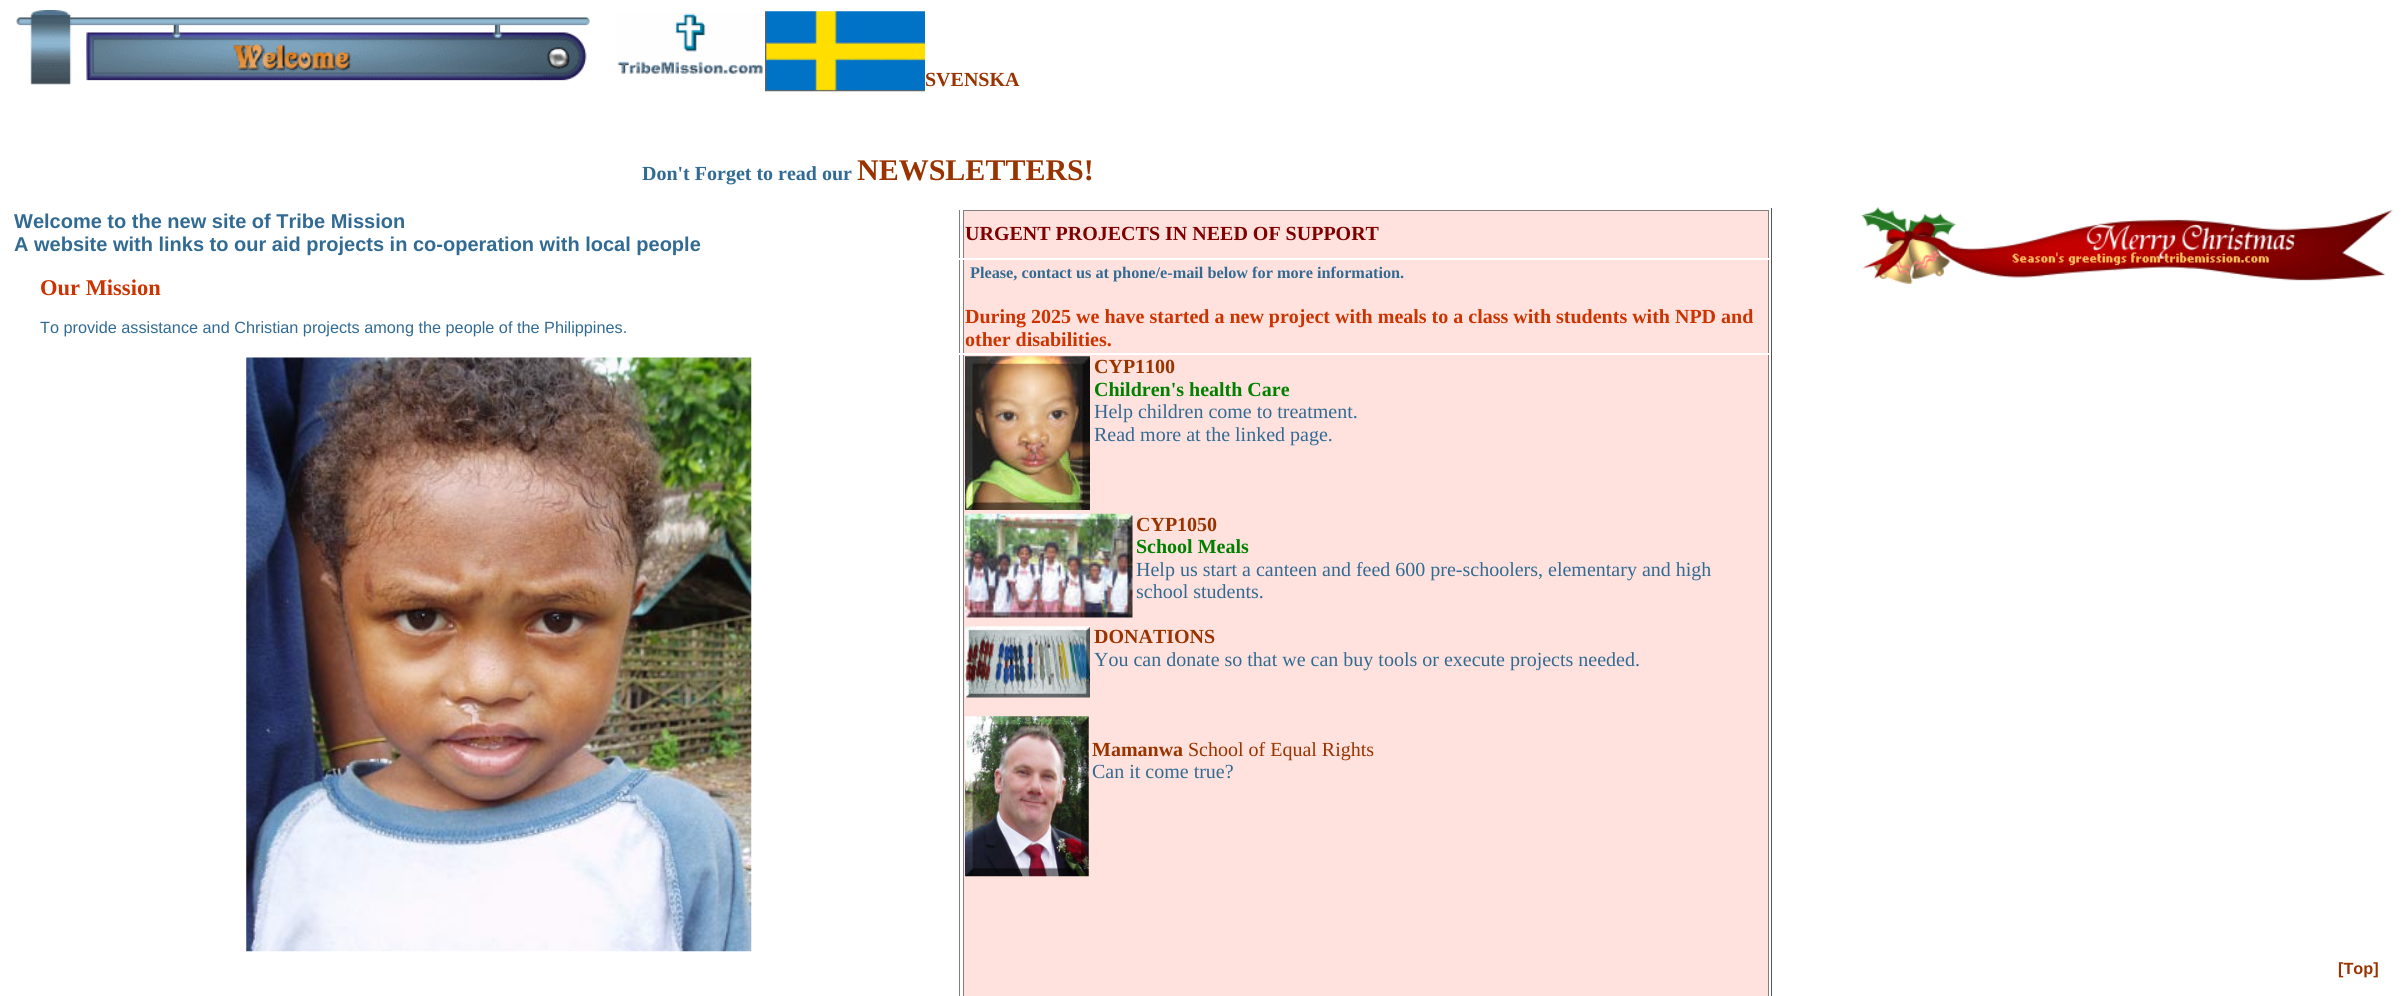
#include <cairo.h>
#include <math.h>
#include <stddef.h>


static void rgb(cairo_t *cr, int r, int g, int b)
{
	cairo_set_source_rgb(cr, r / 255.0, g / 255.0, b / 255.0);
}

static void face(cairo_t *cr, const char *family, double size, int italic, int bold)
{
	cairo_select_font_face(cr, family, italic ? CAIRO_FONT_SLANT_ITALIC : CAIRO_FONT_SLANT_NORMAL,
		bold ? CAIRO_FONT_WEIGHT_BOLD : CAIRO_FONT_WEIGHT_NORMAL);
	cairo_set_font_size(cr, size);
}

static void label(cairo_t *cr, double x, double y, const char *s)
{
	cairo_move_to(cr, x, y);
	cairo_show_text(cr, s);
}

static void rect(cairo_t *cr, double x, double y, double w, double h)
{
	cairo_rectangle(cr, x, y, w, h);
	cairo_fill(cr);
}

static void image(cairo_t *cr, const char *path, double x, double y, double w, double h)
{
	cairo_surface_t *image = cairo_image_surface_create_from_png(path);
	cairo_save(cr);
	cairo_set_source_surface(cr, image, x, y);
	cairo_rectangle(cr, x, y, w, h);
	cairo_fill(cr);
	cairo_restore(cr);
	cairo_surface_destroy(image);
}

static void draw(cairo_t *cr) {
	rgb(cr, 255, 255, 255);
	cairo_paint(cr);
	image(cr, "image0.png", 16, 10, 574, 75);
	image(cr, "image1.png", 617, 13, 146, 61);
	image(cr, "image2.png", 765, 11, 160, 81);
	face(cr, "Liberation Serif", 20, 0, 1);
	rgb(cr, 153, 51, 0);
	label(cr, 925, 86, "SVENSKA");
	rgb(cr, 49, 107, 148);
	label(cr, 642, 180, "Don't Forget to read our");
	face(cr, "Liberation Serif", 30, 0, 1);
	rgb(cr, 153, 51, 0);
	label(cr, 857, 180, "NEWSLETTERS!");
	rgb(cr, 85, 85, 85);
	rect(cr, 1771, 208, 1, 788);
	rgb(cr, 128, 128, 128);
	rect(cr, 959, 210, 1, 48);
	face(cr, "Liberation Sans", 20, 0, 1);
	rgb(cr, 49, 107, 148);
	label(cr, 14, 228, "Welcome to the new site of Tribe Mission");
	label(cr, 14, 251, "A website with links to our aid projects in co-operation with local people");
	rgb(cr, 255, 226, 221);
	rect(cr, 964, 211, 804, 47);
	rgb(cr, 128, 128, 128);
	rect(cr, 963, 210, 806, 1);
	rect(cr, 1768, 210, 1, 48);
	rect(cr, 963, 210, 1, 48);
	face(cr, "Liberation Serif", 20, 0, 1);
	rgb(cr, 128, 0, 0);
	label(cr, 965, 240, "URGENT PROJECTS IN NEED OF SUPPORT");
	rgb(cr, 128, 128, 128);
	rect(cr, 959, 260, 1, 93);
	face(cr, "Liberation Serif", 22.5, 0, 1);
	rgb(cr, 204, 51, 0);
	label(cr, 40, 295, "Our Mission");
	face(cr, "Liberation Sans", 16.25, 0, 0);
	rgb(cr, 49, 107, 148);
	label(cr, 40, 333, "To provide assistance and Christian projects among the people of the Philippines.");
	rgb(cr, 255, 226, 221);
	rect(cr, 964, 260, 804, 93);
	rgb(cr, 128, 128, 128);
	rect(cr, 1768, 260, 1, 93);
	rect(cr, 963, 260, 1, 93);
	face(cr, "Liberation Serif", 16.25, 0, 1);
	rgb(cr, 49, 107, 148);
	label(cr, 970, 278, "Please, contact us at phone/e-mail below for more information.");
	face(cr, "Liberation Serif", 20, 0, 1);
	rgb(cr, 204, 51, 0);
	label(cr, 965, 323, "During 2025 we have started a new project with meals to a class with students with NPD and");
	label(cr, 965, 346, "other disabilities.");
	rgb(cr, 128, 128, 128);
	rect(cr, 959, 355, 1, 641);
	image(cr, "image3.png", 246, 357, 506, 595);
	rgb(cr, 255, 226, 221);
	rect(cr, 964, 355, 804, 641);
	rgb(cr, 128, 128, 128);
	rect(cr, 1768, 355, 1, 641);
	rect(cr, 963, 355, 1, 641);
	image(cr, "image4.png", 965, 356, 125, 154);
	rgb(cr, 153, 51, 0);
	label(cr, 1094, 373, "CYP1100");
	rgb(cr, 0, 128, 0);
	label(cr, 1094, 396, "Children's health Care");
	face(cr, "Liberation Serif", 20, 0, 0);
	rgb(cr, 49, 107, 148);
	label(cr, 1094, 418, "Help children come to treatment.");
	label(cr, 1094, 441, "Read more at the linked page.");
	image(cr, "image5.png", 965, 513, 168, 105);
	face(cr, "Liberation Serif", 20, 0, 1);
	rgb(cr, 153, 51, 0);
	label(cr, 1136, 531, "CYP1050");
	rgb(cr, 0, 128, 0);
	label(cr, 1136, 553, "School Meals");
	face(cr, "Liberation Serif", 20, 0, 0);
	rgb(cr, 49, 107, 148);
	label(cr, 1136, 576, "Help us start a canteen and feed 600 pre-schoolers, elementary and high");
	label(cr, 1136, 598, "school students.");
	image(cr, "image6.png", 965, 626, 125, 72);
	face(cr, "Liberation Serif", 20, 0, 1);
	rgb(cr, 153, 51, 0);
	label(cr, 1094, 643, "DONATIONS");
	face(cr, "Liberation Serif", 20, 0, 0);
	rgb(cr, 49, 107, 148);
	label(cr, 1094, 666, "You can donate so that we can buy tools or execute projects needed.");
	image(cr, "image7.png", 965, 716, 124, 161);
	face(cr, "Liberation Serif", 20, 0, 1);
	rgb(cr, 153, 51, 0);
	label(cr, 1092, 756, "Mamanwa");
	face(cr, "Liberation Serif", 20, 0, 0);
	label(cr, 1188, 756, "School of Equal Rights");
	rgb(cr, 49, 107, 148);
	label(cr, 1092, 778, "Can it come true?");
	image(cr, "image8.png", 1861, 207, 532, 77);
	face(cr, "Liberation Sans", 16.25, 0, 1);
	rgb(cr, 153, 51, 0);
	label(cr, 2338, 974, "[Top]");
}

int main(void) {
	cairo_surface_t *surface = cairo_image_surface_create(CAIRO_FORMAT_RGB24, 2402, 996);
	cairo_t *cr = cairo_create(surface);
	cairo_font_options_t *options = cairo_font_options_create();
	cairo_font_options_set_hint_metrics(options, CAIRO_HINT_METRICS_OFF);
	cairo_font_options_set_hint_style(options, CAIRO_HINT_STYLE_NONE);
	cairo_set_font_options(cr, options);
	cairo_set_miter_limit(cr, 4);
	draw(cr);
	cairo_surface_write_to_png(surface, "render.png");
	cairo_font_options_destroy(options);
	cairo_destroy(cr);
	cairo_surface_destroy(surface);
	return 0;
}
